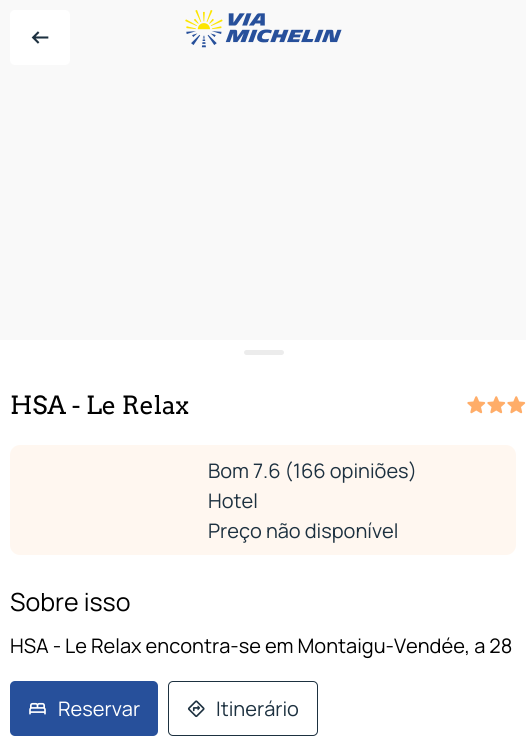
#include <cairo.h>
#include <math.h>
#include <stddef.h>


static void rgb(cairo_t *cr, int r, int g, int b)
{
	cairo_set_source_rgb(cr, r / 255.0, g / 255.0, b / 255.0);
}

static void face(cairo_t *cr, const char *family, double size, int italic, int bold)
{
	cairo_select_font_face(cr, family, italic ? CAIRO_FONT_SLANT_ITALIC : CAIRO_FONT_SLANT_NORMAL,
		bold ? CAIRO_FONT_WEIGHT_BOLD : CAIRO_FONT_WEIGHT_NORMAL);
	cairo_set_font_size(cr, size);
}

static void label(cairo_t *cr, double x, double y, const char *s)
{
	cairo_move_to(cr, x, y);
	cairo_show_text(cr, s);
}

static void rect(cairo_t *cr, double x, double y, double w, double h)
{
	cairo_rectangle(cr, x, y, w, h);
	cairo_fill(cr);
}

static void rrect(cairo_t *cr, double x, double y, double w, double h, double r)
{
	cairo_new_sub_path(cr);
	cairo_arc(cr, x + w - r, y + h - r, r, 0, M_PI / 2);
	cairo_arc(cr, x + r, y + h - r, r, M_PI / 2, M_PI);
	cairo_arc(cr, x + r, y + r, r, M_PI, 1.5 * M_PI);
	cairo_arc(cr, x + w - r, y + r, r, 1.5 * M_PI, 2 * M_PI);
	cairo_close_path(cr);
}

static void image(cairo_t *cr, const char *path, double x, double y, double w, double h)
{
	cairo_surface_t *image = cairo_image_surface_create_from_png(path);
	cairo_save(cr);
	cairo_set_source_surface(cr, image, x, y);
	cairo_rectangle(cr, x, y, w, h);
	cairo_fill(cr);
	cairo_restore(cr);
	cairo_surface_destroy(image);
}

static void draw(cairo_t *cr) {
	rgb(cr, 249, 249, 249);
	cairo_paint(cr);
	image(cr, "image0.png", 185, 10, 157, 38);
	rgb(cr, 255, 255, 255);
	rrect(cr, 10, 10, 60, 55, 5);
	cairo_fill(cr);
	image(cr, "image1.png", 31, 31, 18, 13);
	rect(cr, 0, 340, 526, 10);
	cairo_new_path(cr);
	cairo_move_to(cr, 10, 340);
	cairo_line_to(cr, 516, 340);
	cairo_curve_to(cr, 521.5, 340, 526, 344.5, 526, 350);
	cairo_line_to(cr, 526, 746);
	cairo_line_to(cr, 0, 746);
	cairo_line_to(cr, 0, 350);
	cairo_curve_to(cr, 0, 344.5, 4.5, 340, 10, 340);
	cairo_close_path(cr);
	cairo_fill(cr);
	rgb(cr, 236, 236, 236);
	rrect(cr, 244, 350, 40, 5, 2.5);
	cairo_fill(cr);
	face(cr, "Arvo", 25, 0, 0);
	rgb(cr, 0, 0, 0);
	label(cr, 10, 414, "HSA - Le Relax");
	image(cr, "image2.png", 467, 396, 19, 18);
	image(cr, "image2.png", 487, 396, 19, 18);
	image(cr, "image2.png", 507, 396, 19, 18);
	rgb(cr, 255, 247, 240);
	rrect(cr, 10, 445, 506, 110, 10);
	cairo_fill(cr);
	face(cr, "Manrope ExtraLight", 20, 0, 0);
	rgb(cr, 29, 49, 64);
	label(cr, 208, 478, "Bom 7.6 (166 opiniões)");
	label(cr, 208, 508, "Hotel");
	label(cr, 208, 538, "Preço não disponível");
	face(cr, "Manrope ExtraLight", 25, 0, 0);
	rgb(cr, 0, 0, 0);
	label(cr, 10, 611, "Sobre isso");
	face(cr, "Manrope ExtraLight", 20, 0, 0);
	label(cr, 10, 653, "HSA - Le Relax encontra-se em Montaigu-Vendée, a 28");
	rgb(cr, 39, 80, 155);
	rrect(cr, 10, 681, 148, 55, 5);
	cairo_fill(cr);
	image(cr, "image3.png", 29, 702, 17, 13);
	rgb(cr, 255, 255, 255);
	label(cr, 58, 716, "Reservar");
	rrect(cr, 168.5, 681.5, 149, 54, 4.5);
	rgb(cr, 29, 49, 64);
	cairo_set_line_width(cr, 1);
	cairo_stroke(cr);
	image(cr, "image4.png", 187, 700, 18, 18);
	label(cr, 216, 716, "Itinerário");
}

int main(void) {
	cairo_surface_t *surface = cairo_image_surface_create(CAIRO_FORMAT_RGB24, 526, 746);
	cairo_t *cr = cairo_create(surface);
	cairo_font_options_t *options = cairo_font_options_create();
	cairo_font_options_set_hint_metrics(options, CAIRO_HINT_METRICS_OFF);
	cairo_font_options_set_hint_style(options, CAIRO_HINT_STYLE_NONE);
	cairo_set_font_options(cr, options);
	cairo_set_miter_limit(cr, 4);
	draw(cr);
	cairo_surface_write_to_png(surface, "render.png");
	cairo_font_options_destroy(options);
	cairo_destroy(cr);
	cairo_surface_destroy(surface);
	return 0;
}
